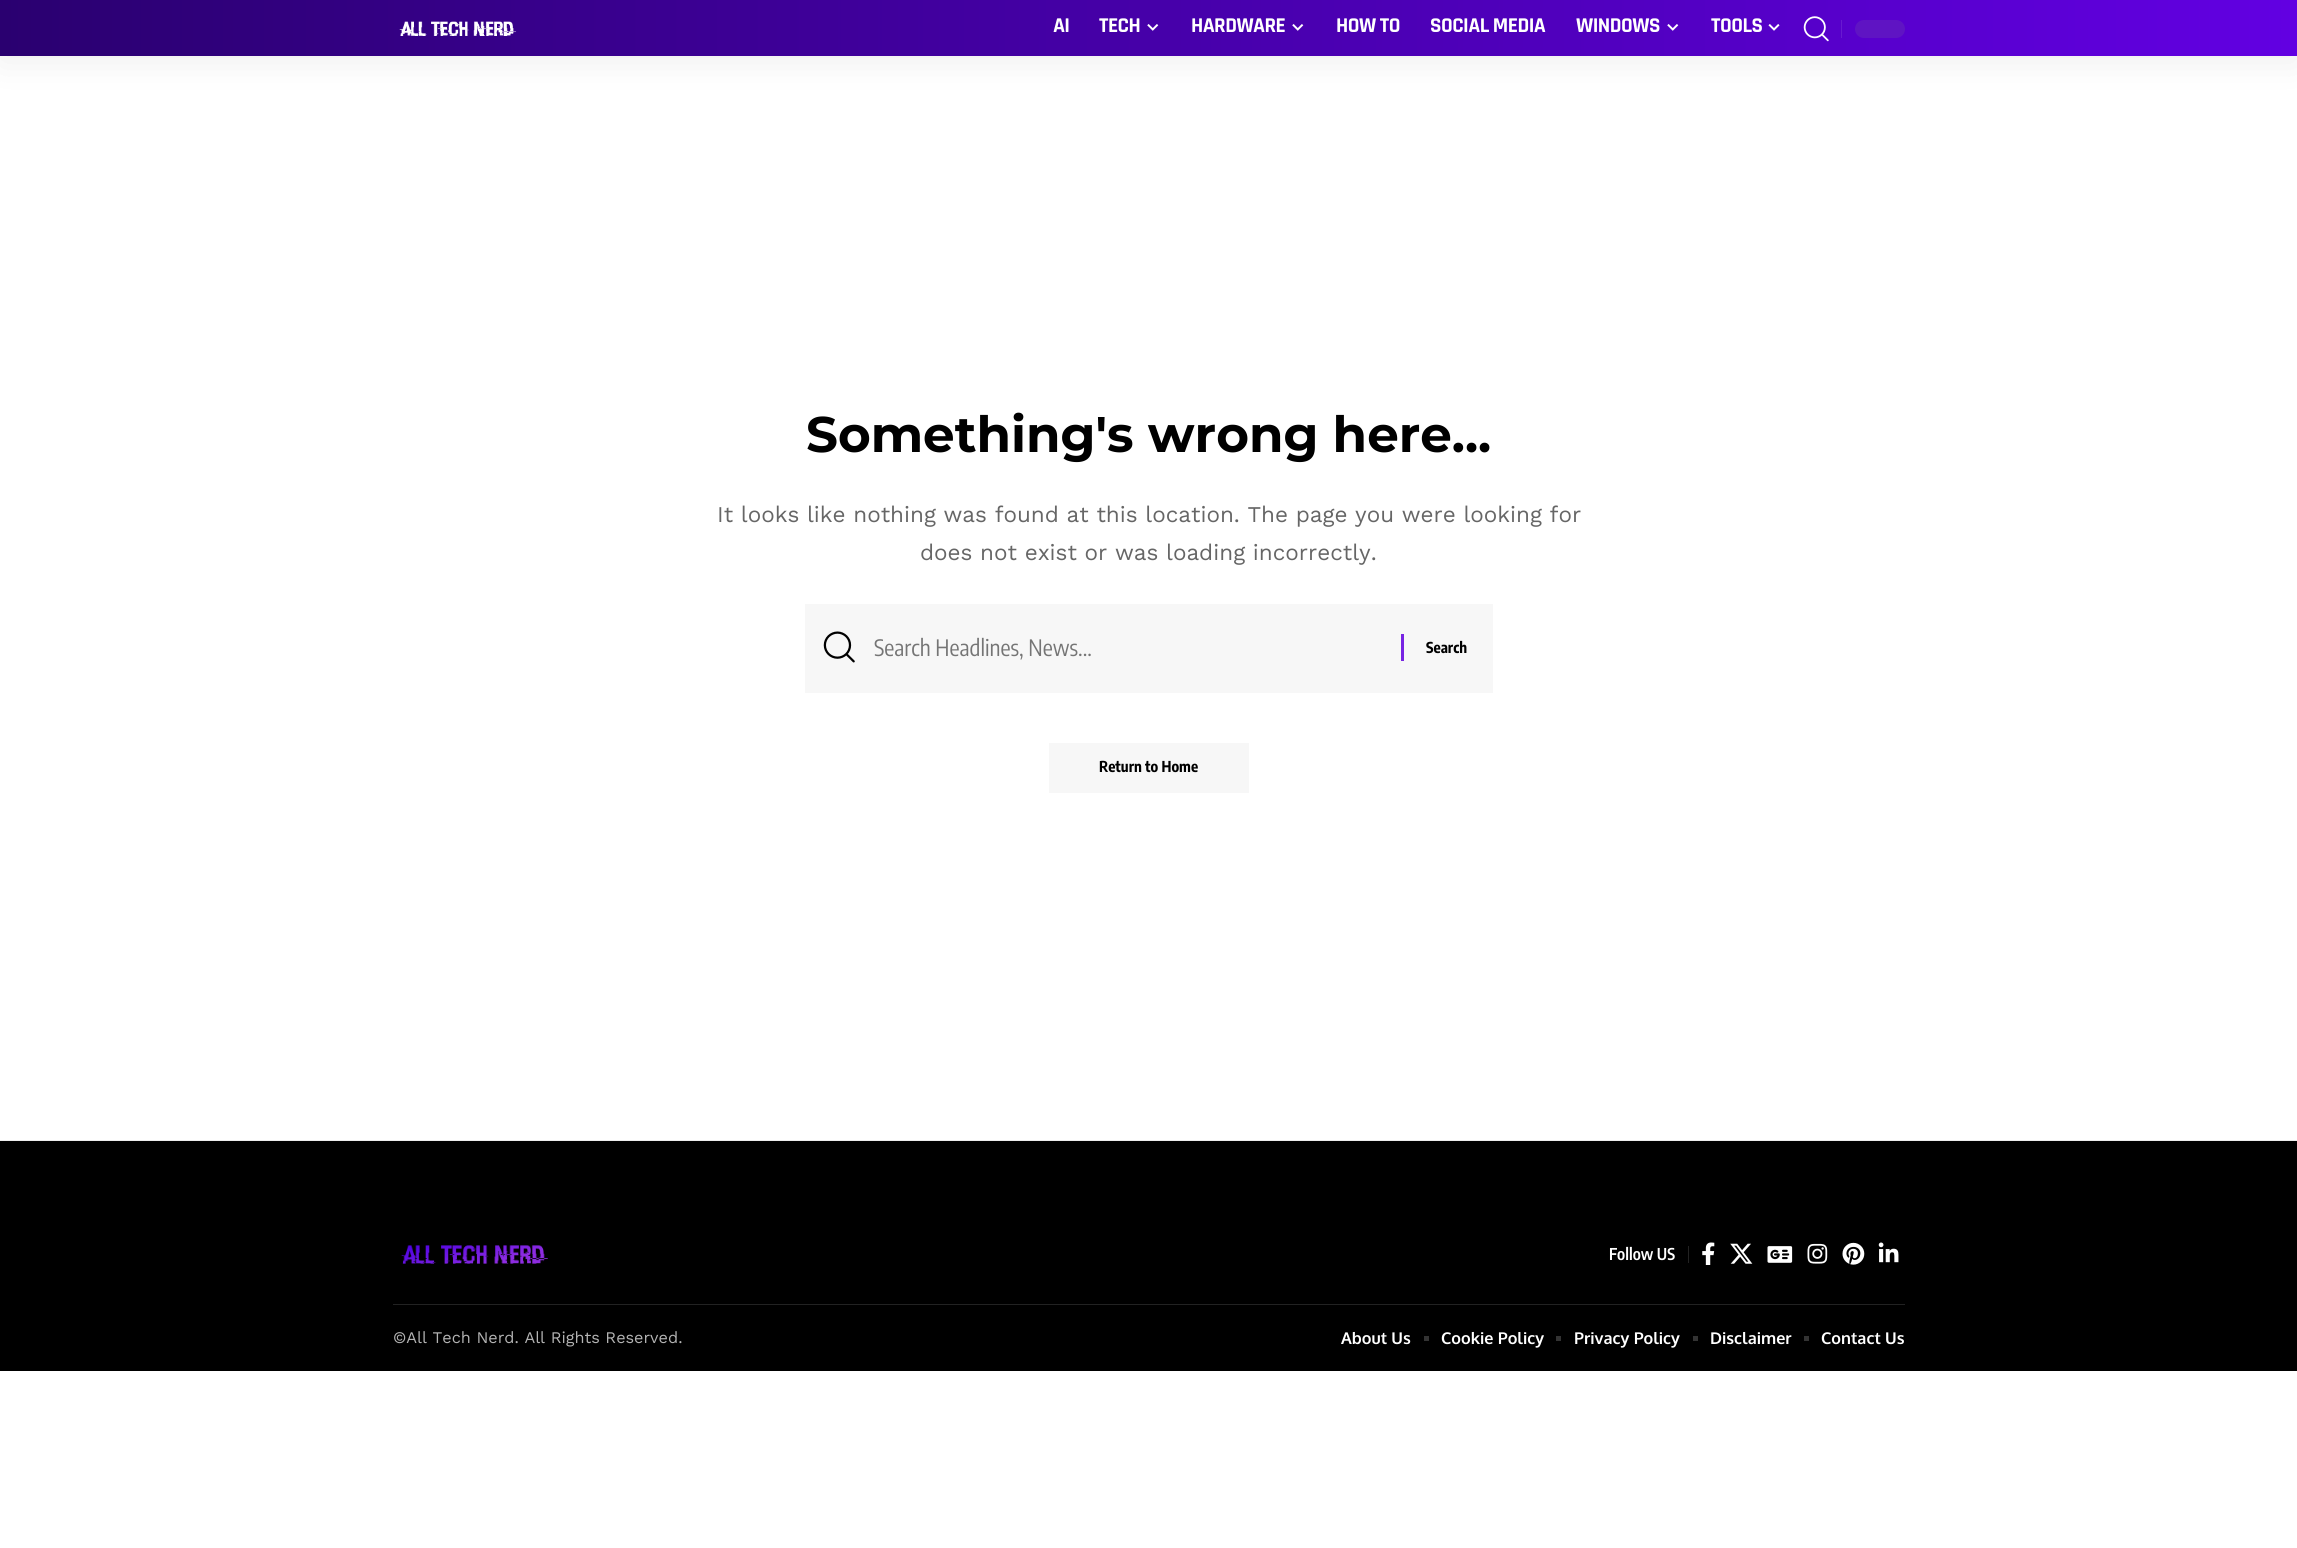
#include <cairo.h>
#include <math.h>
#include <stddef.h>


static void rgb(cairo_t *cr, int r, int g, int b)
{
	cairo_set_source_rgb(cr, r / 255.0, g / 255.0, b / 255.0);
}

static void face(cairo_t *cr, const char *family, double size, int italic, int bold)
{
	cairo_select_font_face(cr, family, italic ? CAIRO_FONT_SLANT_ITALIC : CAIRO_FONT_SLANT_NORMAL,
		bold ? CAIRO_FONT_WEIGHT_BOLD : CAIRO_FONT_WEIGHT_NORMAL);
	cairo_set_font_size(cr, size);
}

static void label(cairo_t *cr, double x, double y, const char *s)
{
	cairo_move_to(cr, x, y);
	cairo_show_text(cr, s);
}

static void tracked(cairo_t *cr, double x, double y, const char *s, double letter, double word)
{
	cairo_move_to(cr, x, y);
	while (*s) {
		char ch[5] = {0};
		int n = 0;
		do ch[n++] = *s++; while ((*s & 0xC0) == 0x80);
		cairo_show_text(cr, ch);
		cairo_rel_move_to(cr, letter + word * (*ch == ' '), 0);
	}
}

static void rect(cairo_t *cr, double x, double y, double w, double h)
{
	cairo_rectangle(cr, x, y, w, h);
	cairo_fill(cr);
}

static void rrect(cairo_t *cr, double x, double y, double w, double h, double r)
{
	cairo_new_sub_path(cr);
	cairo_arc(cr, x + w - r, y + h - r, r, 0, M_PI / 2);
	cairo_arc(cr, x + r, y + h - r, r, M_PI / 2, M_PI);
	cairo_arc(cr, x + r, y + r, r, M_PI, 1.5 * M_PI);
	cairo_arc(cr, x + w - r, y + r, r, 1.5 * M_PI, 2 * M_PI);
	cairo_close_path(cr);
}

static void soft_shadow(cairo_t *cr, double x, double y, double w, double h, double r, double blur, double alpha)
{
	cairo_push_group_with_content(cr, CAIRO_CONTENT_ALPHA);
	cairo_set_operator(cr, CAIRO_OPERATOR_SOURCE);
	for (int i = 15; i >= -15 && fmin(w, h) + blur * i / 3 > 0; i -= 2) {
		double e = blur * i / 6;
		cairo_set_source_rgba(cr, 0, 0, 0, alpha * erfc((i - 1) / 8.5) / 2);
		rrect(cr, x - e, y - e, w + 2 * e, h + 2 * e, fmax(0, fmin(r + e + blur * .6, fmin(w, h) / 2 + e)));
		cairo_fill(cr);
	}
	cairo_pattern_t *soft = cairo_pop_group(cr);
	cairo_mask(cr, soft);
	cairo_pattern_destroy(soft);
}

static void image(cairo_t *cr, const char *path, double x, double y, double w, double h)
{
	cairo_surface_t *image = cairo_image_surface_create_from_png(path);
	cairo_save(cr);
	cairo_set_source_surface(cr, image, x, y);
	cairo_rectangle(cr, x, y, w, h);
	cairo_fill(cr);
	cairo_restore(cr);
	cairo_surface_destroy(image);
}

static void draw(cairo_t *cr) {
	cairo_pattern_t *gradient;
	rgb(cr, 255, 255, 255);
	cairo_paint(cr);
	rgb(cr, 0, 0, 0);
	soft_shadow(cr, 0, 5, 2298, 56, 0, 19, 0.07);
	gradient = cairo_pattern_create_linear(0, 28, 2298, 28);
	cairo_pattern_add_color_stop_rgba(gradient, 0, 0.165, 0, 0.439, 1);
	cairo_pattern_add_color_stop_rgba(gradient, 1, 0.384, 0, 0.886, 1);
	cairo_set_source(cr, gradient);
	cairo_pattern_destroy(gradient);
	rect(cr, 0, 0, 2297, 56);
	image(cr, "image0.png", 399, 21, 118, 15);
	face(cr, "Rajdhani", 21.25, 0, 1);
	rgb(cr, 255, 255, 255);
	tracked(cr, 1053, 32, "AI", -0.5, 0);
	tracked(cr, 1099, 32, "TECH", -0.5, 0);
	image(cr, "image1.png", 1147, 24, 12, 7);
	tracked(cr, 1191, 32, "HARDWARE", -0.5, 0);
	image(cr, "image2.png", 1292, 24, 12, 7);
	tracked(cr, 1336, 32, "HOW TO", -0.5, 0);
	tracked(cr, 1430, 32, "SOCIAL MEDIA", -0.5, 0);
	tracked(cr, 1576, 32, "WINDOWS", -0.5, 0);
	image(cr, "image3.png", 1667, 24, 12, 7);
	tracked(cr, 1711, 32, "TOOLS", -0.5, 0);
	image(cr, "image4.png", 1768, 24, 12, 7);
	image(cr, "image5.png", 1803, 16, 26, 26);
	rgb(cr, 104, 26, 208);
	rect(cr, 1841, 20, 1, 18);
	rgb(cr, 95, 20, 195);
	rrect(cr, 1855, 20, 50, 18, 9);
	cairo_fill(cr);
	face(cr, "Montserrat Thin", 50, 0, 0);
	rgb(cr, 0, 0, 0);
	label(cr, 806, 452, "Something's wrong here...");
	face(cr, "Work Sans", 22.5, 0, 0);
	rgb(cr, 102, 102, 102);
	label(cr, 717, 522, "It looks like nothing was found at this location. The page you were looking for");
	label(cr, 920, 560, "does not exist or was loading incorrectly.");
	rgb(cr, 247, 247, 247);
	rect(cr, 805, 604, 688, 89);
	image(cr, "image6.png", 823, 631, 32, 32);
	face(cr, "Encode Sans Condensed", 22.5, 0, 0);
	rgb(cr, 117, 117, 117);
	label(cr, 874, 656, "Search Headlines, News...");
	rgb(cr, 119, 36, 227);
	rect(cr, 1401, 634, 3, 27);
	face(cr, "Encode Sans Condensed", 15, 0, 1);
	rgb(cr, 0, 0, 0);
	label(cr, 1426, 653, "Search");
	rgb(cr, 247, 247, 247);
	rect(cr, 1049, 743, 200, 50);
	rgb(cr, 0, 0, 0);
	label(cr, 1099, 772, "Return to Home");
	rgb(cr, 237, 237, 237);
	rect(cr, 0, 1140, 2297, 1);
	rgb(cr, 0, 0, 0);
	rect(cr, 0, 1141, 2297, 230);
	image(cr, "image7.png", 401, 1245, 147, 19);
	rgb(cr, 34, 34, 34);
	rect(cr, 1688, 1246, 1, 17);
	face(cr, "Encode Sans Condensed SemiBold", 16.25, 0, 0);
	rgb(cr, 255, 255, 255);
	label(cr, 1609, 1260, "Follow US");
	image(cr, "image8.png", 1702, 1242, 13, 23);
	image(cr, "image9.png", 1730, 1243, 23, 21);
	image(cr, "image10.png", 1767, 1246, 26, 17);
	image(cr, "image11.png", 1807, 1243, 21, 21);
	image(cr, "image12.png", 1842, 1242, 23, 23);
	image(cr, "image13.png", 1878, 1242, 21, 21);
	rgb(cr, 34, 34, 34);
	rect(cr, 393, 1304, 1512, 1);
	face(cr, "Work Sans", 16.25, 0, 0);
	rgb(cr, 179, 179, 179);
	label(cr, 393, 1343, "©All Tech Nerd. All Rights Reserved.");
	face(cr, "Oxygen", 16.25, 0, 1);
	rgb(cr, 255, 255, 255);
	label(cr, 1341, 1344, "About Us");
	rgb(cr, 51, 51, 51);
	rect(cr, 1424, 1336, 5, 5);
	rgb(cr, 255, 255, 255);
	label(cr, 1441, 1344, "Cookie Policy");
	rgb(cr, 51, 51, 51);
	rect(cr, 1556, 1336, 5, 5);
	rgb(cr, 255, 255, 255);
	label(cr, 1574, 1344, "Privacy Policy");
	rgb(cr, 51, 51, 51);
	rect(cr, 1693, 1336, 5, 5);
	rgb(cr, 255, 255, 255);
	label(cr, 1710, 1344, "Disclaimer");
	rgb(cr, 51, 51, 51);
	rect(cr, 1804, 1336, 5, 5);
	rgb(cr, 255, 255, 255);
	label(cr, 1821, 1344, "Contact Us");
}

int main(void) {
	cairo_surface_t *surface = cairo_image_surface_create(CAIRO_FORMAT_RGB24, 2297, 1548);
	cairo_t *cr = cairo_create(surface);
	cairo_font_options_t *options = cairo_font_options_create();
	cairo_font_options_set_hint_metrics(options, CAIRO_HINT_METRICS_OFF);
	cairo_font_options_set_hint_style(options, CAIRO_HINT_STYLE_NONE);
	cairo_set_font_options(cr, options);
	cairo_set_miter_limit(cr, 4);
	draw(cr);
	cairo_surface_write_to_png(surface, "render.png");
	cairo_font_options_destroy(options);
	cairo_destroy(cr);
	cairo_surface_destroy(surface);
	return 0;
}
